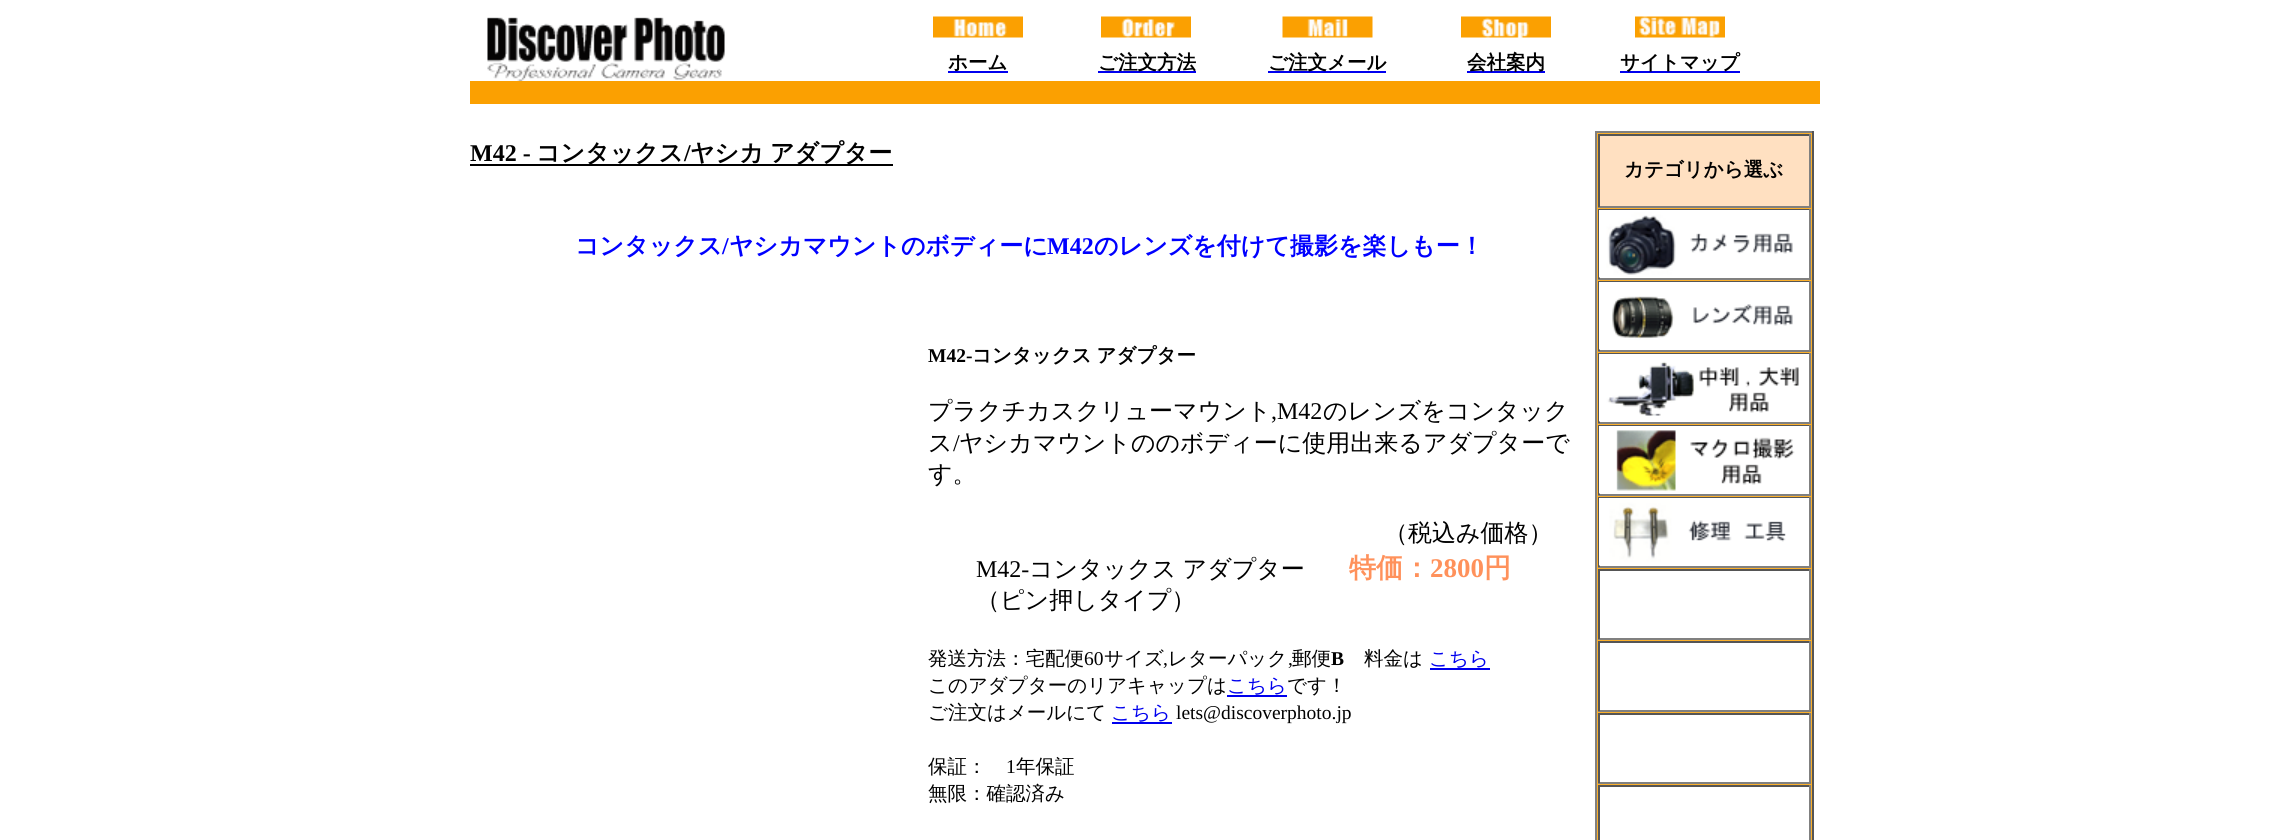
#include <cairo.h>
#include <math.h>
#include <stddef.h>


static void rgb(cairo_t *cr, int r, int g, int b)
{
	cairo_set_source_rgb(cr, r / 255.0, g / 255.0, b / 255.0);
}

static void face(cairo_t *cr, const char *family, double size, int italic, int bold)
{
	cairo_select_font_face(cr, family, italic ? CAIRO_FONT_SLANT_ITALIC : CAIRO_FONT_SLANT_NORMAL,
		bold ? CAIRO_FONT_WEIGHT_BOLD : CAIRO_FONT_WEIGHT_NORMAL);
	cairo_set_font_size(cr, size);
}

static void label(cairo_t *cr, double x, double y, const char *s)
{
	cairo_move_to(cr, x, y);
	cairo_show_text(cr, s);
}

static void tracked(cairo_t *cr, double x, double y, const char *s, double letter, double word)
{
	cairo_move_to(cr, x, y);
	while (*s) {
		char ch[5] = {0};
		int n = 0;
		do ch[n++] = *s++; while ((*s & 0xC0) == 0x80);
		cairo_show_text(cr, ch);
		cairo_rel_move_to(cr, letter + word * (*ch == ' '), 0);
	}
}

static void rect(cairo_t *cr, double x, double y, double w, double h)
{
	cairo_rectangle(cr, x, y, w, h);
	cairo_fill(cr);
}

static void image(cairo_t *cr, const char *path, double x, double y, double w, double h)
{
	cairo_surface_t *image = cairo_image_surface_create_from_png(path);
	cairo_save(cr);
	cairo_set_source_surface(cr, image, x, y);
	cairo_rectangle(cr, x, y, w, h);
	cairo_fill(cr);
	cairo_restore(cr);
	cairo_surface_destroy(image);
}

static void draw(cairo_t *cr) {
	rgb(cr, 255, 255, 255);
	cairo_paint(cr);
	image(cr, "image0.png", 487, 17, 238, 64);
	image(cr, "image1.png", 933, 16, 90, 22);
	image(cr, "image2.png", 1101, 16, 90, 22);
	image(cr, "image3.png", 1282, 16, 91, 22);
	image(cr, "image4.png", 1461, 16, 90, 22);
	image(cr, "image5.png", 1635, 16, 90, 22);
	face(cr, "WenQuanYi Zen Hei", 19.5, 0, 1);
	rgb(cr, 0, 0, 0);
	label(cr, 948, 69, "ホーム");
	rgb(cr, 0, 0, 238);
	rect(cr, 948, 71, 60, 2);
	rect(cr, 1098, 71, 98, 2);
	rgb(cr, 0, 0, 0);
	label(cr, 1098, 69, "ご注文方法");
	rgb(cr, 0, 0, 238);
	rect(cr, 1268, 71, 118, 2);
	rgb(cr, 0, 0, 0);
	label(cr, 1268, 69, "ご注文メール");
	rgb(cr, 0, 0, 238);
	rect(cr, 1467, 71, 78, 2);
	rgb(cr, 0, 0, 0);
	label(cr, 1467, 69, "会社案内");
	rgb(cr, 0, 0, 238);
	rect(cr, 1620, 71, 120, 2);
	rgb(cr, 0, 0, 0);
	label(cr, 1620, 69, "サイトマップ");
	rgb(cr, 251, 160, 1);
	rect(cr, 470, 81, 1350, 23);
	face(cr, "Liberation Serif", 24, 0, 1);
	rgb(cr, 0, 0, 0);
	label(cr, 470, 161, "M42 -");
	rect(cr, 470, 164, 423, 2);
	face(cr, "WenQuanYi Zen Hei", 24, 0, 1);
	label(cr, 536, 161, "コンタックス");
	face(cr, "Liberation Serif", 24, 0, 1);
	label(cr, 684, 161, "/");
	face(cr, "WenQuanYi Zen Hei", 24, 0, 1);
	label(cr, 690, 161, "ヤシカ");
	label(cr, 770, 161, "アダプター");
	rgb(cr, 252, 176, 43);
	rect(cr, 1597, 133, 215, 707);
	rgb(cr, 128, 128, 128);
	rect(cr, 1595, 131, 219, 2);
	rgb(cr, 85, 85, 85);
	rect(cr, 1812, 131, 2, 709);
	rgb(cr, 128, 128, 128);
	rect(cr, 1595, 131, 2, 709);
	rgb(cr, 255, 224, 193);
	rect(cr, 1600, 136, 209, 70);
	rgb(cr, 85, 85, 85);
	rect(cr, 1598, 134, 213, 2);
	rgb(cr, 128, 128, 128);
	rect(cr, 1809, 134, 2, 73);
	rect(cr, 1598, 206, 213, 2);
	rgb(cr, 85, 85, 85);
	rect(cr, 1598, 134, 2, 73);
	face(cr, "WenQuanYi Zen Hei", 19.5, 0, 1);
	rgb(cr, 0, 0, 0);
	label(cr, 1624, 176, "カテゴリから選ぶ");
	rgb(cr, 255, 255, 255);
	rect(cr, 1600, 277, 209, 1);
	rgb(cr, 85, 85, 85);
	rect(cr, 1598, 209, 213, 1);
	rgb(cr, 128, 128, 128);
	rect(cr, 1809, 209, 2, 70);
	rect(cr, 1598, 278, 213, 2);
	rgb(cr, 85, 85, 85);
	rect(cr, 1598, 209, 2, 70);
	image(cr, "image6.png", 1599, 210, 210, 68);
	rgb(cr, 255, 255, 255);
	rect(cr, 1600, 349, 209, 1);
	rgb(cr, 85, 85, 85);
	rect(cr, 1598, 281, 213, 1);
	rgb(cr, 128, 128, 128);
	rect(cr, 1809, 281, 2, 70);
	rect(cr, 1598, 350, 213, 2);
	rgb(cr, 85, 85, 85);
	rect(cr, 1598, 281, 2, 70);
	image(cr, "image7.png", 1599, 282, 210, 68);
	rgb(cr, 255, 255, 255);
	rect(cr, 1600, 421, 209, 1);
	rgb(cr, 85, 85, 85);
	rect(cr, 1598, 353, 213, 1);
	rgb(cr, 128, 128, 128);
	rect(cr, 1809, 353, 2, 70);
	rect(cr, 1598, 422, 213, 2);
	rgb(cr, 85, 85, 85);
	rect(cr, 1598, 353, 2, 70);
	image(cr, "image8.png", 1599, 354, 210, 68);
	rgb(cr, 255, 255, 255);
	rect(cr, 1600, 493, 209, 1);
	rgb(cr, 85, 85, 85);
	rect(cr, 1598, 425, 213, 1);
	rgb(cr, 128, 128, 128);
	rect(cr, 1809, 425, 2, 70);
	rect(cr, 1598, 494, 213, 2);
	rgb(cr, 85, 85, 85);
	rect(cr, 1598, 425, 2, 70);
	image(cr, "image9.png", 1599, 426, 210, 68);
	rgb(cr, 255, 255, 255);
	rect(cr, 1600, 565, 209, 1);
	rgb(cr, 85, 85, 85);
	rect(cr, 1598, 497, 213, 1);
	rgb(cr, 128, 128, 128);
	rect(cr, 1809, 497, 2, 70);
	rect(cr, 1598, 566, 213, 2);
	rgb(cr, 85, 85, 85);
	rect(cr, 1598, 497, 2, 70);
	image(cr, "image10.png", 1599, 498, 210, 68);
	rgb(cr, 255, 255, 255);
	rect(cr, 1600, 571, 209, 67);
	rgb(cr, 85, 85, 85);
	rect(cr, 1598, 569, 213, 2);
	rgb(cr, 128, 128, 128);
	rect(cr, 1809, 569, 2, 70);
	rect(cr, 1598, 638, 213, 2);
	rgb(cr, 85, 85, 85);
	rect(cr, 1598, 569, 2, 70);
	rgb(cr, 255, 255, 255);
	rect(cr, 1600, 643, 209, 67);
	rgb(cr, 85, 85, 85);
	rect(cr, 1598, 641, 213, 2);
	rgb(cr, 128, 128, 128);
	rect(cr, 1809, 641, 2, 70);
	rect(cr, 1598, 710, 213, 2);
	rgb(cr, 85, 85, 85);
	rect(cr, 1598, 641, 2, 70);
	rgb(cr, 255, 255, 255);
	rect(cr, 1600, 715, 209, 67);
	rgb(cr, 85, 85, 85);
	rect(cr, 1598, 713, 213, 2);
	rgb(cr, 128, 128, 128);
	rect(cr, 1809, 713, 2, 70);
	rect(cr, 1598, 782, 213, 2);
	rgb(cr, 85, 85, 85);
	rect(cr, 1598, 713, 2, 70);
	rgb(cr, 255, 255, 255);
	rect(cr, 1600, 787, 209, 53);
	rgb(cr, 85, 85, 85);
	rect(cr, 1598, 785, 213, 2);
	rgb(cr, 128, 128, 128);
	rect(cr, 1809, 785, 2, 55);
	rgb(cr, 85, 85, 85);
	rect(cr, 1598, 785, 2, 55);
	face(cr, "WenQuanYi Zen Hei", 24, 0, 1);
	rgb(cr, 0, 0, 255);
	label(cr, 575, 254, "コンタックス");
	face(cr, "Liberation Serif", 24, 0, 1);
	label(cr, 722, 254, "/");
	face(cr, "WenQuanYi Zen Hei", 24, 0, 1);
	label(cr, 729, 254, "ヤシカマウントのボディーに");
	face(cr, "Liberation Serif", 24, 0, 1);
	label(cr, 1047, 254, "M42");
	face(cr, "WenQuanYi Zen Hei", 24, 0, 1);
	label(cr, 1094, 254, "のレンズを付けて撮影を楽しもー！");
	face(cr, "Liberation Serif", 19.5, 0, 1);
	rgb(cr, 0, 0, 0);
	label(cr, 928, 362, "M42-");
	face(cr, "WenQuanYi Zen Hei", 19.5, 0, 1);
	tracked(cr, 972, 362, "コンタックス アダプター", 0, -1);
	face(cr, "WenQuanYi Zen Hei Medium", 24, 0, 0);
	label(cr, 928, 419, "プラクチカスクリューマウント");
	face(cr, "Liberation Serif", 24, 0, 0);
	label(cr, 1271, 419, ",M42");
	face(cr, "WenQuanYi Zen Hei Medium", 24, 0, 0);
	label(cr, 1323, 419, "のレンズをコンタック");
	label(cr, 928, 451, "ス");
	face(cr, "Liberation Serif", 24, 0, 0);
	label(cr, 953, 451, "/");
	face(cr, "WenQuanYi Zen Hei Medium", 24, 0, 0);
	label(cr, 959, 451, "ヤシカマウントののボディーに使用出来るアダプターで");
	label(cr, 928, 482, "す。");
	label(cr, 1384, 541, "（税込み価格）");
	face(cr, "Liberation Serif", 24, 0, 0);
	label(cr, 976, 577, "M42-");
	face(cr, "WenQuanYi Zen Hei Medium", 24, 0, 0);
	tracked(cr, 1029, 577, "コンタックス アダプター", 0, -1);
	face(cr, "WenQuanYi Zen Hei", 27, 0, 1);
	rgb(cr, 255, 145, 91);
	label(cr, 1349, 577, "特価：");
	face(cr, "Liberation Serif", 27, 0, 1);
	label(cr, 1430, 577, "2800");
	face(cr, "WenQuanYi Zen Hei", 27, 0, 1);
	label(cr, 1484, 577, "円");
	face(cr, "WenQuanYi Zen Hei Medium", 24, 0, 0);
	rgb(cr, 0, 0, 0);
	label(cr, 976, 608, "（ピン押しタイプ）");
	face(cr, "WenQuanYi Zen Hei Medium", 19.5, 0, 0);
	label(cr, 928, 665, "発送方法：宅配便");
	face(cr, "Liberation Serif", 19.5, 0, 0);
	label(cr, 1084, 665, "60");
	face(cr, "WenQuanYi Zen Hei Medium", 19.5, 0, 0);
	label(cr, 1104, 665, "サイズ");
	face(cr, "Liberation Serif", 19.5, 0, 0);
	label(cr, 1163, 665, ",");
	face(cr, "WenQuanYi Zen Hei Medium", 19.5, 0, 0);
	label(cr, 1168, 665, "レターパック");
	face(cr, "Liberation Serif", 19.5, 0, 0);
	label(cr, 1288, 665, ",");
	face(cr, "WenQuanYi Zen Hei Medium", 19.5, 0, 0);
	label(cr, 1292, 665, "郵便");
	face(cr, "Liberation Serif", 19.5, 0, 1);
	label(cr, 1331, 665, "B");
	face(cr, "WenQuanYi Zen Hei Medium", 19.5, 0, 0);
	label(cr, 1364, 665, "料金は");
	rgb(cr, 0, 0, 238);
	label(cr, 1429, 665, "こちら");
	rect(cr, 1430, 668, 60, 2);
	rgb(cr, 0, 0, 0);
	label(cr, 928, 692, "このアダプターのリアキャップは");
	rgb(cr, 0, 0, 238);
	label(cr, 1227, 692, "こちら");
	rect(cr, 1227, 695, 60, 2);
	rgb(cr, 0, 0, 0);
	label(cr, 1287, 692, "です！");
	label(cr, 928, 719, "ご注文はメールにて");
	rgb(cr, 0, 0, 238);
	label(cr, 1111, 719, "こちら");
	rect(cr, 1112, 722, 60, 2);
	face(cr, "Liberation Serif", 19.5, 0, 0);
	rgb(cr, 0, 0, 0);
	label(cr, 1176, 719, "lets@discoverphoto.jp");
	face(cr, "WenQuanYi Zen Hei Medium", 19.5, 0, 0);
	label(cr, 928, 773, "保証：");
	face(cr, "Liberation Serif", 19.5, 0, 0);
	label(cr, 1006, 773, "1");
	face(cr, "WenQuanYi Zen Hei Medium", 19.5, 0, 0);
	label(cr, 1016, 773, "年保証");
	label(cr, 928, 800, "無限：確認済み");
}

int main(void) {
	cairo_surface_t *surface = cairo_image_surface_create(CAIRO_FORMAT_RGB24, 2289, 840);
	cairo_t *cr = cairo_create(surface);
	cairo_font_options_t *options = cairo_font_options_create();
	cairo_font_options_set_hint_metrics(options, CAIRO_HINT_METRICS_OFF);
	cairo_font_options_set_hint_style(options, CAIRO_HINT_STYLE_NONE);
	cairo_set_font_options(cr, options);
	cairo_set_miter_limit(cr, 4);
	draw(cr);
	cairo_surface_write_to_png(surface, "render.png");
	cairo_font_options_destroy(options);
	cairo_destroy(cr);
	cairo_surface_destroy(surface);
	return 0;
}
